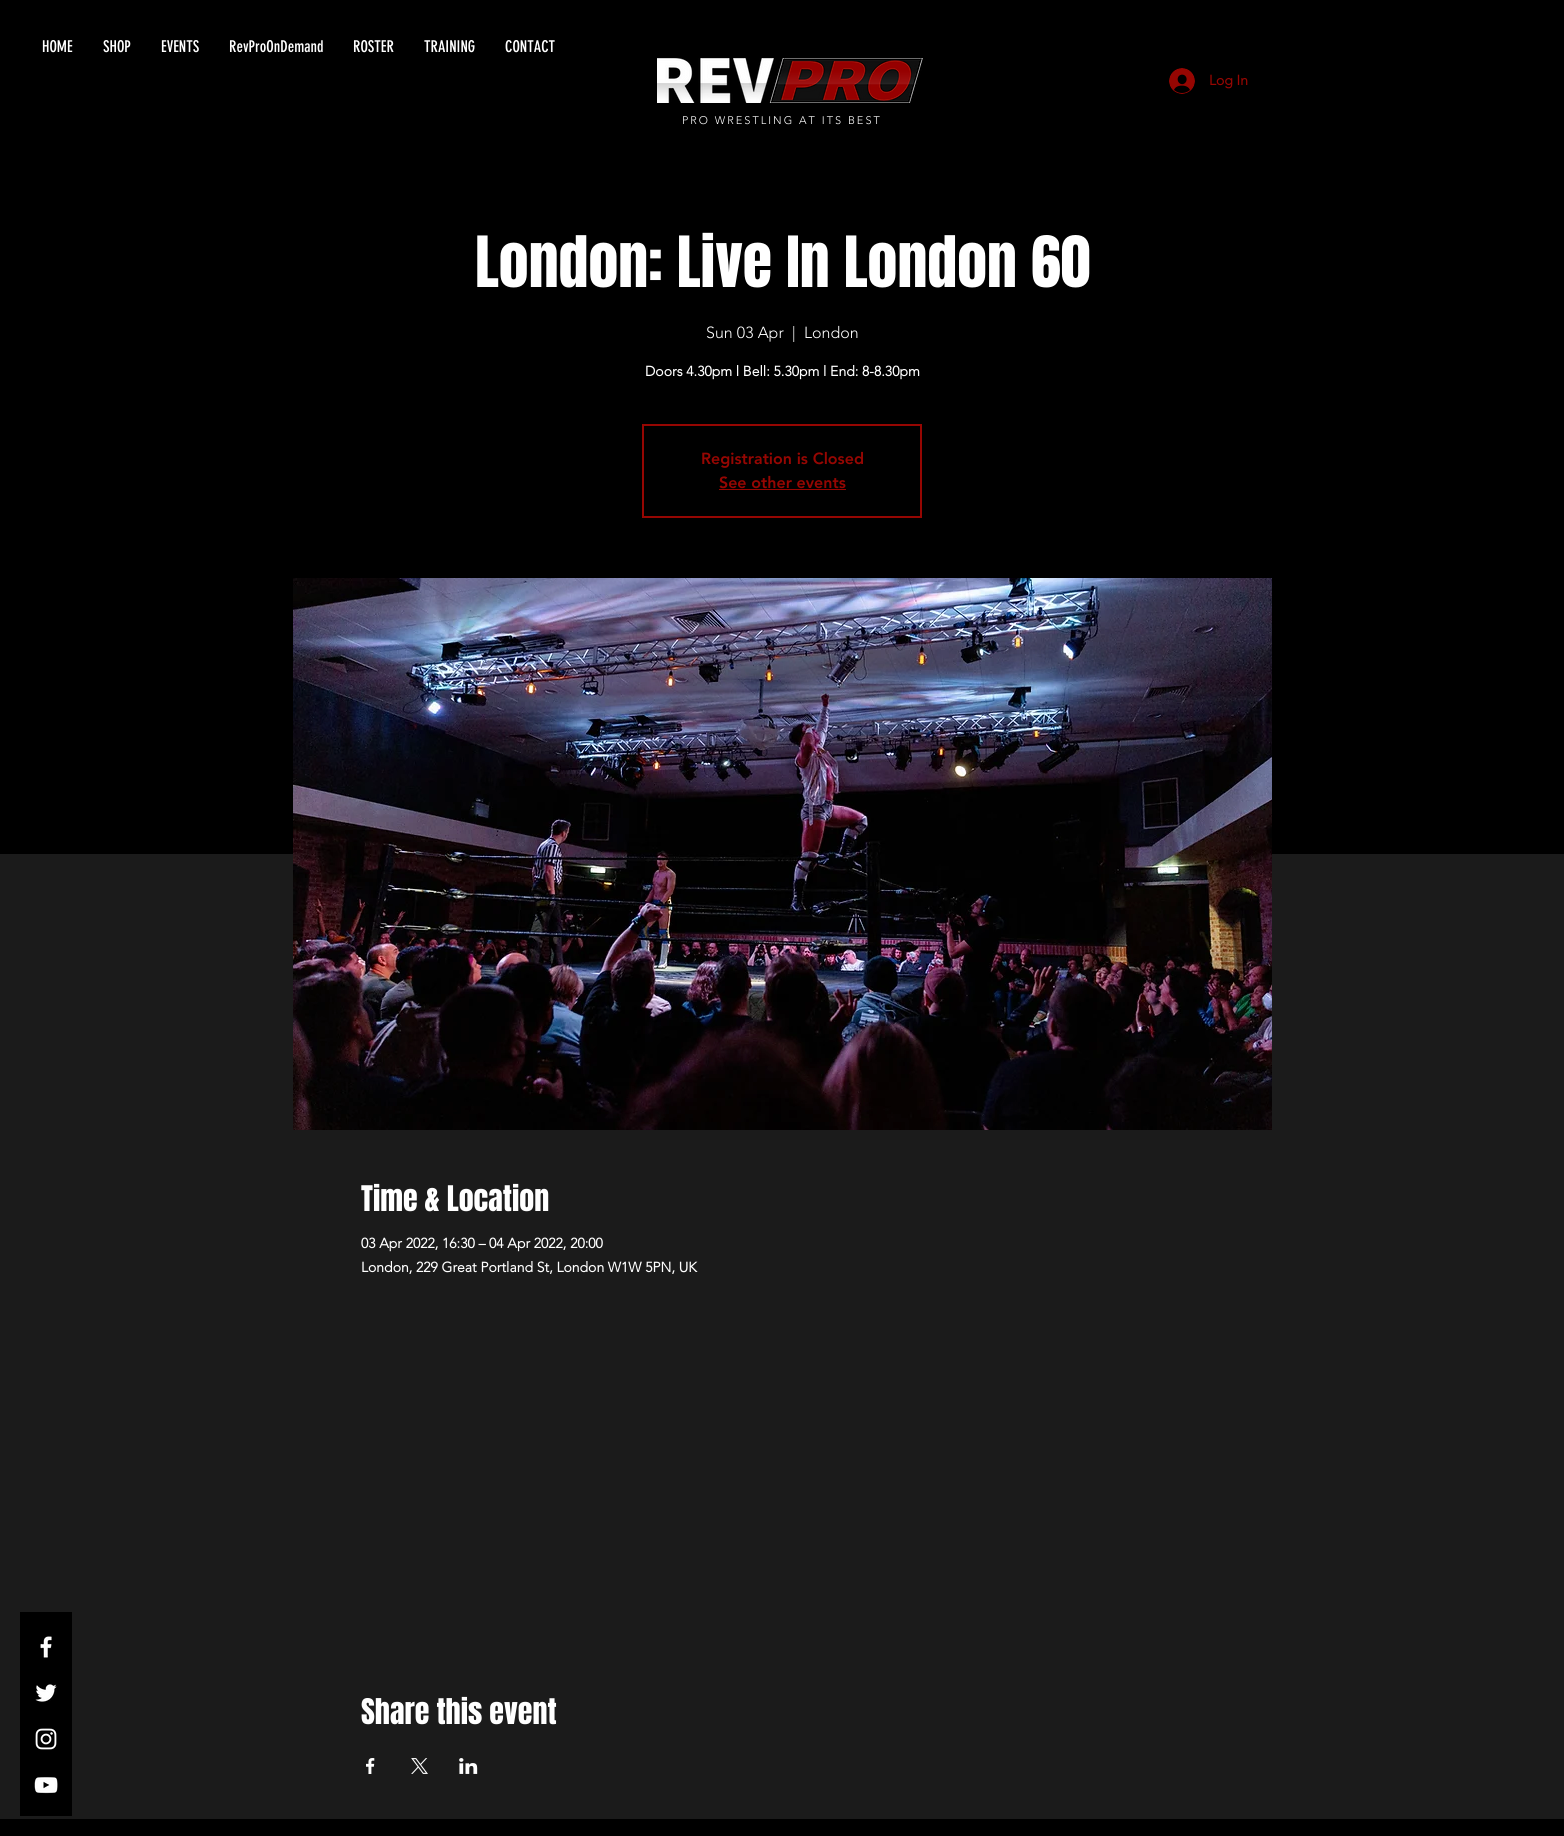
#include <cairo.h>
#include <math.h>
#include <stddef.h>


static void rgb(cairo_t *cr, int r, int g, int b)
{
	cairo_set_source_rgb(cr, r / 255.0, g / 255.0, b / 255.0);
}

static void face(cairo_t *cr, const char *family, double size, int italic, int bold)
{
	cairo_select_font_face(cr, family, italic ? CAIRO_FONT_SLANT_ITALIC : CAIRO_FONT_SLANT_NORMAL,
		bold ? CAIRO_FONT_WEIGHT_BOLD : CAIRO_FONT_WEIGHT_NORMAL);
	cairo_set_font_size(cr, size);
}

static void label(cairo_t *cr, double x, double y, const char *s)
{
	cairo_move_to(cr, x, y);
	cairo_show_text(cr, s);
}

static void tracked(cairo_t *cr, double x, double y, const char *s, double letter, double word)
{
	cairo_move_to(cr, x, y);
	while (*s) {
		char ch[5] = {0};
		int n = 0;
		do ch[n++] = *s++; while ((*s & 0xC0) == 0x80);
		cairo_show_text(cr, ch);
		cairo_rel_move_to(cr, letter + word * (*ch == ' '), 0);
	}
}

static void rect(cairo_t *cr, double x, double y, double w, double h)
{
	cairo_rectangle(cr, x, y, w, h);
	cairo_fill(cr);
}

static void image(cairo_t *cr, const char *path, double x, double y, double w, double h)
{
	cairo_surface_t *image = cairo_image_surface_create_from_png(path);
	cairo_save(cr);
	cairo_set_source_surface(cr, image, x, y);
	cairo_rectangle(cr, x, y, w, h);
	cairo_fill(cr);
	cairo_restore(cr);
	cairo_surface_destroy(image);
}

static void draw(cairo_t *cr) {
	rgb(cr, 0, 0, 0);
	cairo_paint(cr);
	face(cr, "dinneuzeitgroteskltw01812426", 16, 0, 0);
	rgb(cr, 255, 255, 255);
	label(cr, 42, 52, "HOME");
	label(cr, 103, 52, "SHOP");
	label(cr, 161, 52, "EVENTS");
	label(cr, 229, 52, "RevProOnDemand");
	label(cr, 353, 52, "ROSTER");
	label(cr, 424, 52, "TRAINING");
	label(cr, 505, 52, "CONTACT");
	image(cr, "image0.png", 657, 58, 266, 45);
	image(cr, "image1.png", 1169, 68, 26, 26);
	face(cr, "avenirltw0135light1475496", 14, 0, 1);
	rgb(cr, 150, 6, 2);
	label(cr, 1209, 85, "Log In");
	face(cr, "avenirltw0135light1475496 Light", 11, 0, 0);
	rgb(cr, 255, 255, 255);
	tracked(cr, 682, 124, "PRO WRESTLING AT ITS BEST", 2, 0);
	rgb(cr, 27, 27, 27);
	rect(cr, 0, 854, 1564, 965);
	rgb(cr, 0, 0, 0);
	rect(cr, 20, 1612, 52, 204);
	image(cr, "image2.png", 40, 1636, 12, 22);
	image(cr, "image3.png", 35, 1684, 22, 18);
	image(cr, "image4.png", 35, 1728, 22, 22);
	image(cr, "image5.png", 34, 1777, 24, 17);
	face(cr, "Anton", 60, 0, 0);
	rgb(cr, 255, 255, 255);
	label(cr, 475, 287, "London: Live In London 60");
	face(cr, "avenirltw0135light1475496 Light", 16, 0, 0);
	label(cr, 706, 338, "Sun 03 Apr");
	label(cr, 792, 338, "|");
	label(cr, 804, 338, "London");
	face(cr, "avenirltw0135light1475496", 14, 0, 1);
	label(cr, 645, 376, "Doors 4.30pm l Bell: 5.30pm l End: 8-8.30pm");
	cairo_rectangle(cr, 643, 425, 278, 92);
	rgb(cr, 150, 6, 2);
	cairo_stroke(cr);
	face(cr, "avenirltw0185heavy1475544 Black", 16, 0, 0);
	label(cr, 701, 464, "Registration is Closed");
	label(cr, 719, 488, "See other events");
	rect(cr, 719, 489, 127, 1);
	image(cr, "image6.png", 293, 578, 979, 552);
	face(cr, "Anton", 30, 0, 0);
	rgb(cr, 255, 255, 255);
	label(cr, 361, 1211, "Time & Location");
	face(cr, "avenirltw0135light1475496", 14, 0, 1);
	label(cr, 361, 1248, "03 Apr 2022, 16:30 – 04 Apr 2022, 20:00");
	label(cr, 361, 1272, "London, 229 Great Portland St, London W1W 5PN, UK");
	face(cr, "Anton", 30, 0, 0);
	label(cr, 361, 1724, "Share this event");
	image(cr, "image7.png", 366, 1758, 9, 16);
	image(cr, "image8.png", 411, 1758, 17, 16);
	image(cr, "image9.png", 459, 1758, 19, 16);
}

int main(void) {
	cairo_surface_t *surface = cairo_image_surface_create(CAIRO_FORMAT_RGB24, 1564, 1836);
	cairo_t *cr = cairo_create(surface);
	cairo_font_options_t *options = cairo_font_options_create();
	cairo_font_options_set_hint_metrics(options, CAIRO_HINT_METRICS_OFF);
	cairo_font_options_set_hint_style(options, CAIRO_HINT_STYLE_NONE);
	cairo_set_font_options(cr, options);
	cairo_set_miter_limit(cr, 4);
	draw(cr);
	cairo_surface_write_to_png(surface, "render.png");
	cairo_font_options_destroy(options);
	cairo_destroy(cr);
	cairo_surface_destroy(surface);
	return 0;
}
